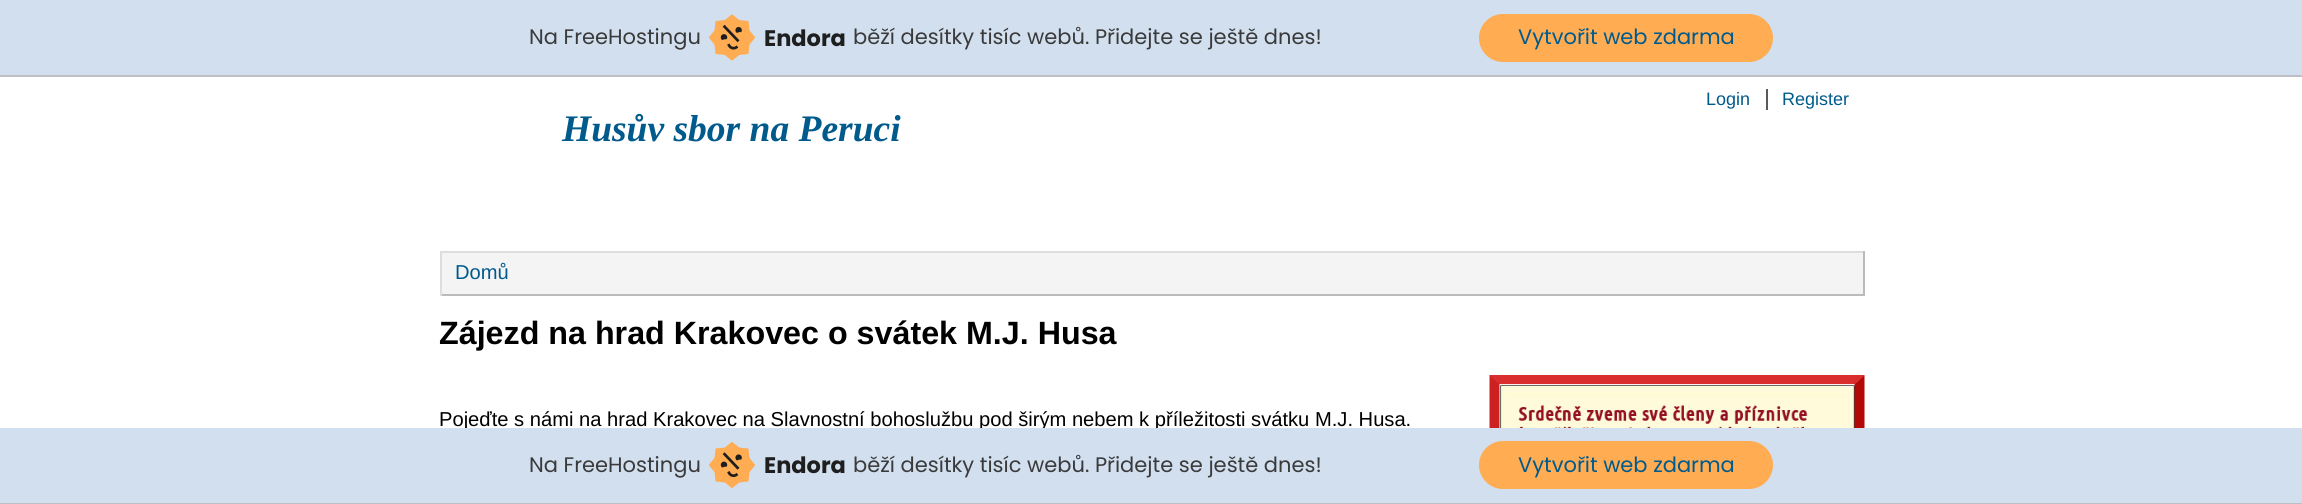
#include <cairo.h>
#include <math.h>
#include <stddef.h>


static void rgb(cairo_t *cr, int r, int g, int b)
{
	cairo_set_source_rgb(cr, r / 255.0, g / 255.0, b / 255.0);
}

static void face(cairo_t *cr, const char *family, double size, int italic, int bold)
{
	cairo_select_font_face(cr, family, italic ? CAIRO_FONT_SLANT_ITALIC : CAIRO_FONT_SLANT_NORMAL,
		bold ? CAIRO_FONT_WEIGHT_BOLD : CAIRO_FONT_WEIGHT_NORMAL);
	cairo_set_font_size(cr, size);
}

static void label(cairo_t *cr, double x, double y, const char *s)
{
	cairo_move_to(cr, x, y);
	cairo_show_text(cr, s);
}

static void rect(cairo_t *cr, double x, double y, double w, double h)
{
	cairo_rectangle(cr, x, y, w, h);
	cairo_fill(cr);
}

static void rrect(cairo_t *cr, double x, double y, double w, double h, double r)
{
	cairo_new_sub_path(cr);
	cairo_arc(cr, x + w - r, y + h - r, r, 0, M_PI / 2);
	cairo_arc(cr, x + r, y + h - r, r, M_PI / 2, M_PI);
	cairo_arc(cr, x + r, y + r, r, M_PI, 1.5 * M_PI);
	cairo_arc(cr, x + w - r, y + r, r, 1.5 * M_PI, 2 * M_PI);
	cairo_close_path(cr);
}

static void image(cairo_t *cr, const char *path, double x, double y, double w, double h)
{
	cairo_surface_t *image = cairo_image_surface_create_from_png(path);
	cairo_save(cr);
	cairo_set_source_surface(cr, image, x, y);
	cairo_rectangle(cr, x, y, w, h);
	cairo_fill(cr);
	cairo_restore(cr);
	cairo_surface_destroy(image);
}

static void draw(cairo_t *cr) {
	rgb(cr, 255, 255, 255);
	cairo_paint(cr);
	rgb(cr, 210, 223, 239);
	rect(cr, 0, 0, 2302, 75);
	rgb(cr, 190, 191, 196);
	rect(cr, 0, 75, 2302, 2);
	face(cr, "Poppins", 21, 0, 0);
	rgb(cr, 58, 58, 58);
	label(cr, 529, 44, "Na FreeHostingu");
	image(cr, "image0.png", 708, 14, 48, 47);
	face(cr, "Poppins", 22.5, 0, 1);
	rgb(cr, 30, 30, 30);
	label(cr, 764, 46, "Endora");
	face(cr, "Poppins", 21, 0, 0);
	rgb(cr, 58, 58, 58);
	label(cr, 853, 44, "běží desítky tisíc webů. Přidejte se ještě dnes!");
	rgb(cr, 255, 172, 82);
	rrect(cr, 1479, 14, 294, 48, 24);
	cairo_fill(cr);
	rgb(cr, 0, 90, 140);
	label(cr, 1518, 44, "Vytvořit web zdarma");
	face(cr, "Liberation Sans", 18, 0, 0);
	label(cr, 1706, 105, "Login");
	label(cr, 1782, 105, "Register");
	rgb(cr, 90, 90, 90);
	rect(cr, 1766, 89, 2, 21);
	face(cr, "Liberation Serif", 37.5, 1, 1);
	rgb(cr, 0, 90, 140);
	label(cr, 562, 141, "Husův sbor na Peruci");
	rgb(cr, 244, 244, 244);
	rect(cr, 442, 253, 1421, 41);
	rgb(cr, 221, 221, 221);
	rect(cr, 440, 251, 1425, 2);
	rgb(cr, 187, 187, 187);
	rect(cr, 1863, 251, 2, 45);
	rect(cr, 440, 294, 1425, 2);
	rgb(cr, 221, 221, 221);
	rect(cr, 440, 251, 2, 45);
	face(cr, "Liberation Sans", 20.15, 0, 0);
	rgb(cr, 0, 90, 140);
	label(cr, 455, 279, "Domů");
	face(cr, "Liberation Sans", 32.25, 0, 1);
	rgb(cr, 0, 0, 0);
	label(cr, 439, 344, "Zájezd na hrad Krakovec o svátek M.J. Husa");
	face(cr, "Liberation Sans", 20.15, 0, 0);
	label(cr, 439, 426, "Pojeďte s námi na hrad Krakovec na Slavnostní bohoslužbu pod širým nebem k příležitosti svátku M.J. Husa.");
	image(cr, "image1.png", 1489, 375, 376, 53);
	rgb(cr, 210, 223, 239);
	rect(cr, 0, 428, 2302, 75);
	rgb(cr, 190, 191, 196);
	rect(cr, 0, 503, 2302, 1);
	face(cr, "Poppins", 21, 0, 0);
	rgb(cr, 58, 58, 58);
	label(cr, 529, 472, "Na FreeHostingu");
	image(cr, "image2.png", 708, 441, 48, 48);
	face(cr, "Poppins", 22.5, 0, 1);
	rgb(cr, 30, 30, 30);
	label(cr, 764, 473, "Endora");
	face(cr, "Poppins", 21, 0, 0);
	rgb(cr, 58, 58, 58);
	label(cr, 853, 472, "běží desítky tisíc webů. Přidejte se ještě dnes!");
	rgb(cr, 255, 172, 82);
	rrect(cr, 1479, 441, 294, 48, 24);
	cairo_fill(cr);
	rgb(cr, 0, 90, 140);
	label(cr, 1518, 472, "Vytvořit web zdarma");
}

int main(void) {
	cairo_surface_t *surface = cairo_image_surface_create(CAIRO_FORMAT_RGB24, 2302, 504);
	cairo_t *cr = cairo_create(surface);
	cairo_font_options_t *options = cairo_font_options_create();
	cairo_font_options_set_hint_metrics(options, CAIRO_HINT_METRICS_OFF);
	cairo_font_options_set_hint_style(options, CAIRO_HINT_STYLE_NONE);
	cairo_set_font_options(cr, options);
	cairo_set_miter_limit(cr, 4);
	draw(cr);
	cairo_surface_write_to_png(surface, "render.png");
	cairo_font_options_destroy(options);
	cairo_destroy(cr);
	cairo_surface_destroy(surface);
	return 0;
}
